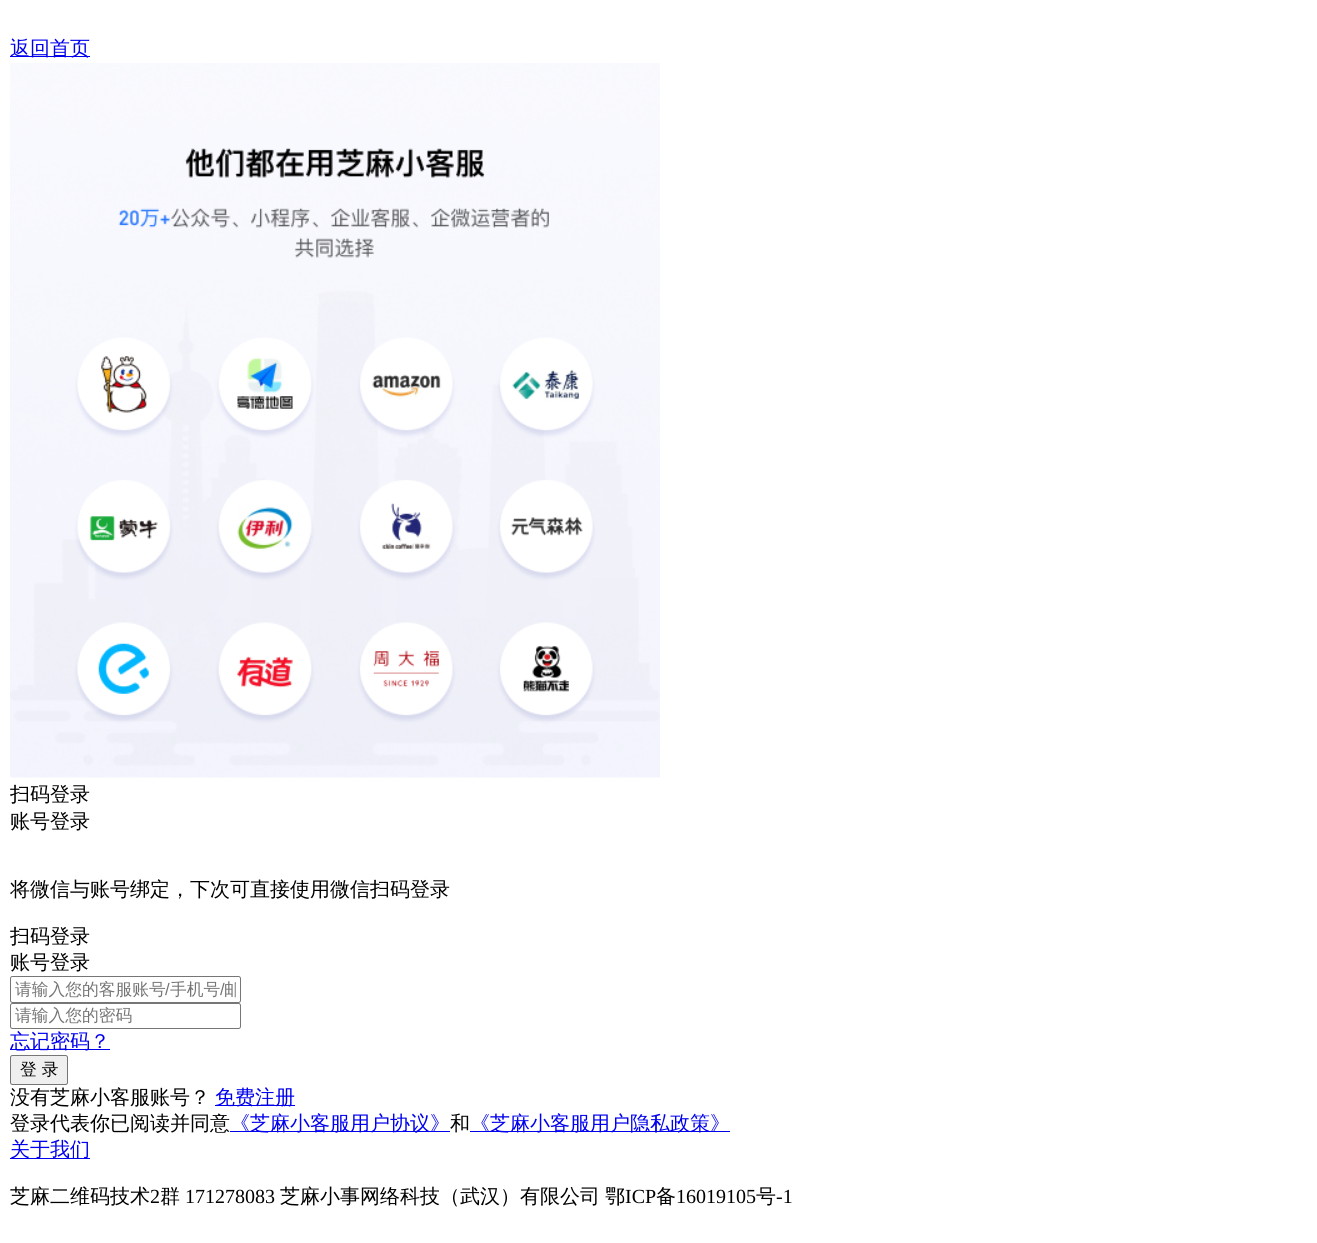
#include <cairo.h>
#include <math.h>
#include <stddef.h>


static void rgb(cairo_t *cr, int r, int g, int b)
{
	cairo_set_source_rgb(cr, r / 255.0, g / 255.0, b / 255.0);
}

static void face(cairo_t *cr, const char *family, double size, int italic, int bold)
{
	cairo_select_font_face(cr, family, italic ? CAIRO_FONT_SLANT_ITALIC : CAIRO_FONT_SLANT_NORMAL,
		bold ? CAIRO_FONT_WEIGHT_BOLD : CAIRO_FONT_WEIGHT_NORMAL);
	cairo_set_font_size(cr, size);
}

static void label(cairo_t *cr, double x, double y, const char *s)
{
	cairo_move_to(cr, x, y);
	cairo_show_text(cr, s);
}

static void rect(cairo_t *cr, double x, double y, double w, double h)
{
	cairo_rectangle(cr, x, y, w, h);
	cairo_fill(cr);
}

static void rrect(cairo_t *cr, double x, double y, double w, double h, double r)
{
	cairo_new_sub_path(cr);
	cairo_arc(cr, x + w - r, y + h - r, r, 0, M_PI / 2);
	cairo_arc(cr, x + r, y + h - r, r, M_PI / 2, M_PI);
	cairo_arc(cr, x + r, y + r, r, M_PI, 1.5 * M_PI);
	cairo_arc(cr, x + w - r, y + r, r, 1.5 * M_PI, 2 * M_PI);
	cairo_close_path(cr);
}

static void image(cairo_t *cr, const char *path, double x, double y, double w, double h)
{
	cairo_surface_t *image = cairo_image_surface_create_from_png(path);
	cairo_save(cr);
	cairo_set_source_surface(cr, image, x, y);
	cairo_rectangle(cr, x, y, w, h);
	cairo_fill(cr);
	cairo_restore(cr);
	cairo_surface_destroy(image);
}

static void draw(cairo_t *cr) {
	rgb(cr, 255, 255, 255);
	cairo_paint(cr);
	rgb(cr, 0, 0, 238);
	rect(cr, 10, 56, 80, 1);
	face(cr, "WenQuanYi Zen Hei Medium", 20, 0, 0);
	label(cr, 10, 55, "返回首页");
	image(cr, "image0.png", 10, 63, 650, 715);
	rgb(cr, 0, 0, 0);
	label(cr, 10, 801, "扫码登录");
	label(cr, 10, 828, "账号登录");
	label(cr, 10, 896, "将微信与账号绑定，下次可直接使用微信扫码登录");
	label(cr, 10, 943, "扫码登录");
	label(cr, 10, 969, "账号登录");
	rrect(cr, 10.5, 976.5, 230, 26, 2);
	rgb(cr, 118, 118, 118);
	cairo_set_line_width(cr, 1);
	cairo_stroke(cr);
	face(cr, "WenQuanYi Zen Hei Medium", 16.75, 0, 0);
	rgb(cr, 117, 117, 117);
	label(cr, 15, 995, "请输入您的客服账号");
	face(cr, "Liberation Sans", 16.75, 0, 0);
	label(cr, 165, 995, "/");
	face(cr, "WenQuanYi Zen Hei Medium", 16.75, 0, 0);
	label(cr, 170, 995, "手机号");
	face(cr, "Liberation Sans", 16.75, 0, 0);
	label(cr, 220, 995, "/");
	cairo_save(cr);
	cairo_rectangle(cr, 15, 979, 221, 21);
	cairo_clip(cr);
	face(cr, "WenQuanYi Zen Hei Medium", 16.75, 0, 0);
	label(cr, 224, 995, "邮");
	cairo_restore(cr);
	rrect(cr, 10.5, 1003.5, 230, 25, 2);
	rgb(cr, 118, 118, 118);
	cairo_stroke(cr);
	face(cr, "WenQuanYi Zen Hei Medium", 16.75, 0, 0);
	rgb(cr, 117, 117, 117);
	label(cr, 15, 1021, "请输入您的密码");
	rgb(cr, 0, 0, 238);
	rect(cr, 10, 1049, 100, 1);
	face(cr, "WenQuanYi Zen Hei Medium", 20, 0, 0);
	label(cr, 10, 1048, "忘记密码？");
	rgb(cr, 239, 239, 239);
	rrect(cr, 10.5, 1055.5, 57, 29, 2);
	cairo_fill_preserve(cr);
	rgb(cr, 118, 118, 118);
	cairo_stroke(cr);
	face(cr, "WenQuanYi Zen Hei Medium", 16.75, 0, 0);
	rgb(cr, 0, 0, 0);
	label(cr, 20, 1075, "登 录");
	face(cr, "WenQuanYi Zen Hei Medium", 20, 0, 0);
	label(cr, 10, 1104, "没有芝麻小客服账号？");
	rgb(cr, 0, 0, 238);
	rect(cr, 215, 1105, 80, 1);
	label(cr, 215, 1104, "免费注册");
	rgb(cr, 0, 0, 0);
	label(cr, 10, 1130, "登录代表你已阅读并同意");
	rgb(cr, 0, 0, 238);
	rect(cr, 230, 1131, 220, 1);
	label(cr, 230, 1130, "《芝麻小客服用户协议》");
	rgb(cr, 0, 0, 0);
	label(cr, 450, 1130, "和");
	rgb(cr, 0, 0, 238);
	rect(cr, 470, 1131, 260, 1);
	label(cr, 470, 1130, "《芝麻小客服用户隐私政策》");
	rect(cr, 10, 1158, 80, 1);
	label(cr, 10, 1156, "关于我们");
	rgb(cr, 0, 0, 0);
	label(cr, 10, 1203, "芝麻二维码技术");
	face(cr, "Liberation Serif", 20, 0, 0);
	label(cr, 150, 1203, "2");
	face(cr, "WenQuanYi Zen Hei Medium", 20, 0, 0);
	label(cr, 160, 1203, "群");
	face(cr, "Liberation Serif", 20, 0, 0);
	label(cr, 185, 1203, "171278083");
	face(cr, "WenQuanYi Zen Hei Medium", 20, 0, 0);
	label(cr, 280, 1203, "芝麻小事网络科技（武汉）有限公司");
	label(cr, 605, 1203, "鄂");
	face(cr, "Liberation Serif", 20, 0, 0);
	label(cr, 625, 1203, "ICP");
	face(cr, "WenQuanYi Zen Hei Medium", 20, 0, 0);
	label(cr, 656, 1203, "备");
	face(cr, "Liberation Serif", 20, 0, 0);
	label(cr, 676, 1203, "16019105");
	face(cr, "WenQuanYi Zen Hei Medium", 20, 0, 0);
	label(cr, 756, 1203, "号");
	face(cr, "Liberation Serif", 20, 0, 0);
	label(cr, 776, 1203, "-1");
}

int main(void) {
	cairo_surface_t *surface = cairo_image_surface_create(CAIRO_FORMAT_RGB24, 1317, 1243);
	cairo_t *cr = cairo_create(surface);
	cairo_font_options_t *options = cairo_font_options_create();
	cairo_font_options_set_hint_metrics(options, CAIRO_HINT_METRICS_OFF);
	cairo_font_options_set_hint_style(options, CAIRO_HINT_STYLE_NONE);
	cairo_set_font_options(cr, options);
	cairo_set_miter_limit(cr, 4);
	draw(cr);
	cairo_surface_write_to_png(surface, "render.png");
	cairo_font_options_destroy(options);
	cairo_destroy(cr);
	cairo_surface_destroy(surface);
	return 0;
}
